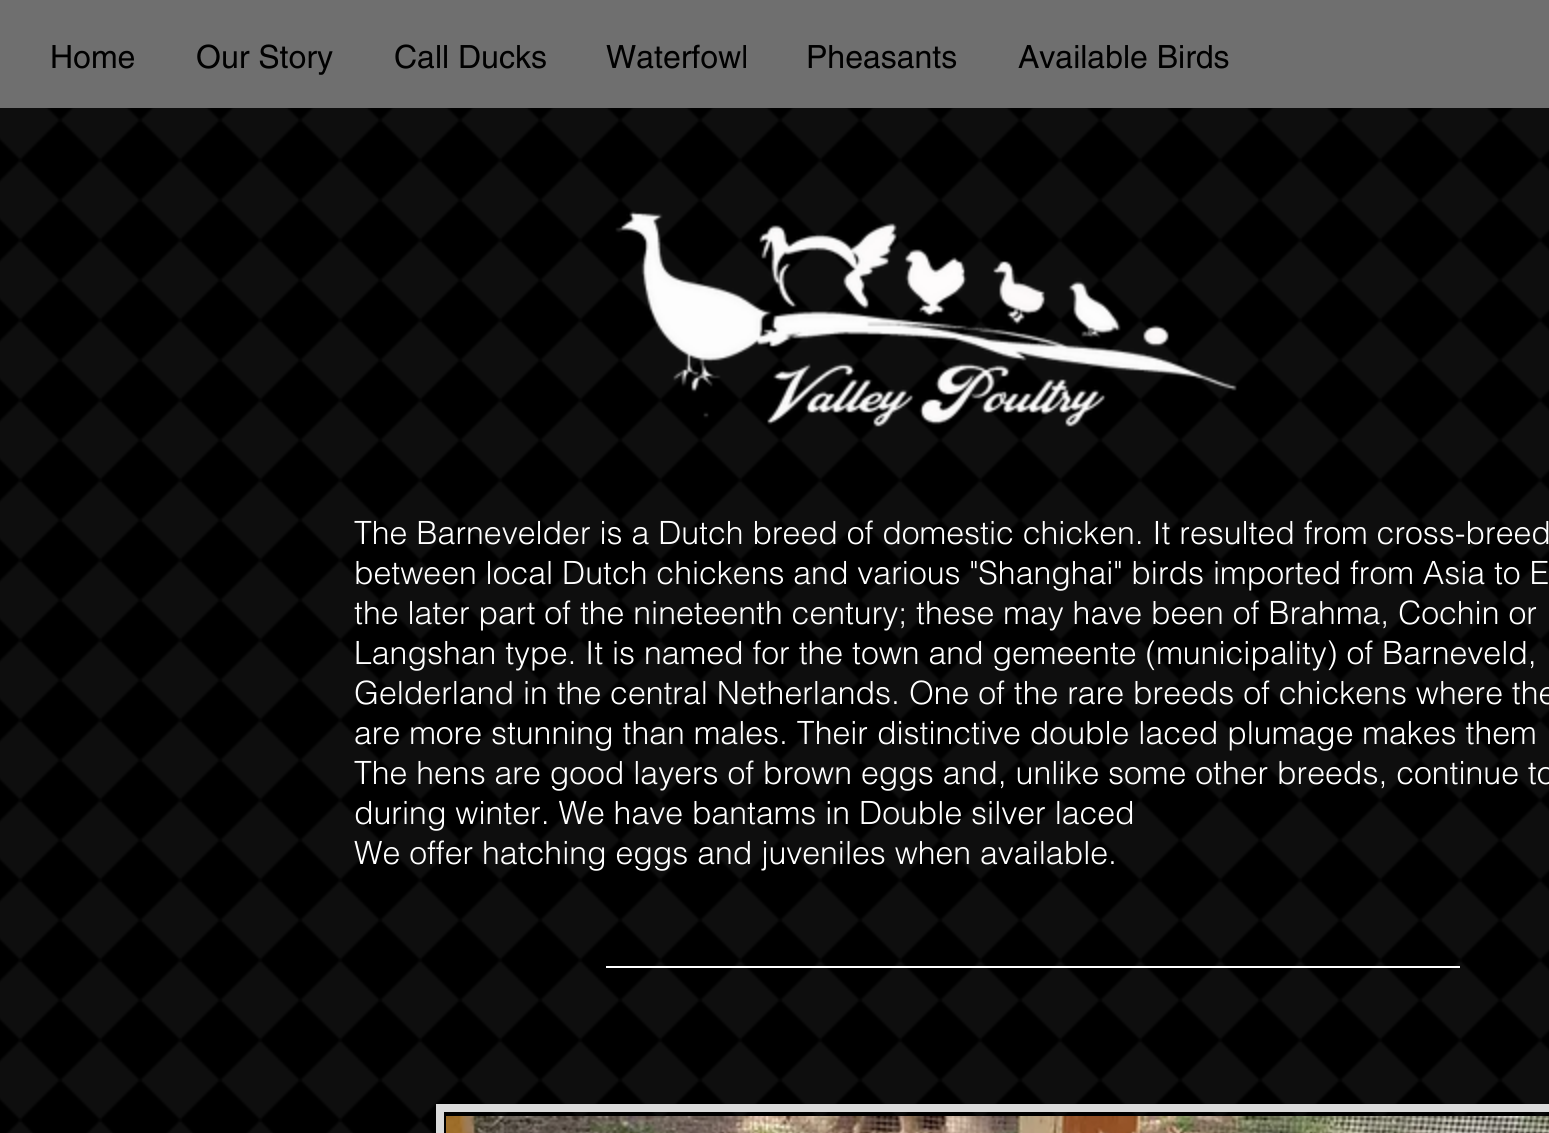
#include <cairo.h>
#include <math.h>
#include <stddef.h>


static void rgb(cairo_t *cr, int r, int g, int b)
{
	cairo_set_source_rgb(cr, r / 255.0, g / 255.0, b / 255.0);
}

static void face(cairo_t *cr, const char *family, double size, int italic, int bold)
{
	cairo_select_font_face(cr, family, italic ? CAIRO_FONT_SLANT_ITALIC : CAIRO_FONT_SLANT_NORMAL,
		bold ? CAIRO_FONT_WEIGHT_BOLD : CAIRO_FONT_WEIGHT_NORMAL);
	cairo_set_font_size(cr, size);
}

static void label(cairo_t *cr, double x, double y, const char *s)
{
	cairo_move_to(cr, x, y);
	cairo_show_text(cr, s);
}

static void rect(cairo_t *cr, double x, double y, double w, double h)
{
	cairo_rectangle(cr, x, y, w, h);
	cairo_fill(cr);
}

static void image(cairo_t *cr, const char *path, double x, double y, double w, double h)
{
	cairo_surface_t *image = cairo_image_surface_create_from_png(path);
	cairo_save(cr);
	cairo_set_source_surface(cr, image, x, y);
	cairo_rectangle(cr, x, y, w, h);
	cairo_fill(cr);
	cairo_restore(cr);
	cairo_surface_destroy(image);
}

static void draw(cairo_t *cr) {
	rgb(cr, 0, 0, 0);
	cairo_paint(cr);
	rgb(cr, 111, 111, 111);
	rect(cr, 0, 0, 1549, 108);
	face(cr, "helvetica", 32, 0, 0);
	rgb(cr, 0, 0, 0);
	label(cr, 50, 68, "Home");
	label(cr, 196, 68, "Our Story");
	label(cr, 394, 68, "Call Ducks");
	label(cr, 606, 68, "Waterfowl");
	label(cr, 806, 68, "Pheasants");
	label(cr, 1018, 68, "Available Birds");
	image(cr, "image4.png", 0, 108, 1549, 1025);
	image(cr, "image0.png", 615, 211, 622, 216);
	face(cr, "helvetica Light", 32, 0, 0);
	rgb(cr, 255, 255, 255);
	label(cr, 354, 544, "The Barnevelder is a Dutch breed of domestic chicken. It resulted from cross-breed");
	label(cr, 354, 584, "between local Dutch chickens and various \"Shanghai\" birds imported from Asia to E");
	label(cr, 354, 624, "the later part of the nineteenth century; these may have been of Brahma, Cochin or");
	label(cr, 354, 664, "Langshan type. It is named for the town and gemeente (municipality) of Barneveld,");
	label(cr, 354, 704, "Gelderland in the central Netherlands. One of the rare breeds of chickens where the");
	label(cr, 354, 744, "are more stunning than males. Their distinctive double laced plumage makes them");
	label(cr, 354, 784, "The hens are good layers of brown eggs and, unlike some other breeds, continue to");
	label(cr, 354, 824, "during winter. We have bantams in Double silver laced");
	label(cr, 354, 864, "We offer hatching eggs and juveniles when available.");
	rect(cr, 606, 966, 854, 2);
	image(cr, "image1.png", 489, 1112, 17, 4);
	image(cr, "image2.png", 506, 1112, 1043, 4);
	cairo_rectangle(cr, 440, 1108, 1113, 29);
	rgb(cr, 219, 219, 219);
	cairo_set_line_width(cr, 8);
	cairo_stroke(cr);
	image(cr, "image3.png", 446, 1116, 1103, 17);
}

int main(void) {
	cairo_surface_t *surface = cairo_image_surface_create(CAIRO_FORMAT_RGB24, 1549, 1133);
	cairo_t *cr = cairo_create(surface);
	cairo_font_options_t *options = cairo_font_options_create();
	cairo_font_options_set_hint_metrics(options, CAIRO_HINT_METRICS_OFF);
	cairo_font_options_set_hint_style(options, CAIRO_HINT_STYLE_NONE);
	cairo_set_font_options(cr, options);
	cairo_set_miter_limit(cr, 4);
	draw(cr);
	cairo_surface_write_to_png(surface, "render.png");
	cairo_font_options_destroy(options);
	cairo_destroy(cr);
	cairo_surface_destroy(surface);
	return 0;
}
